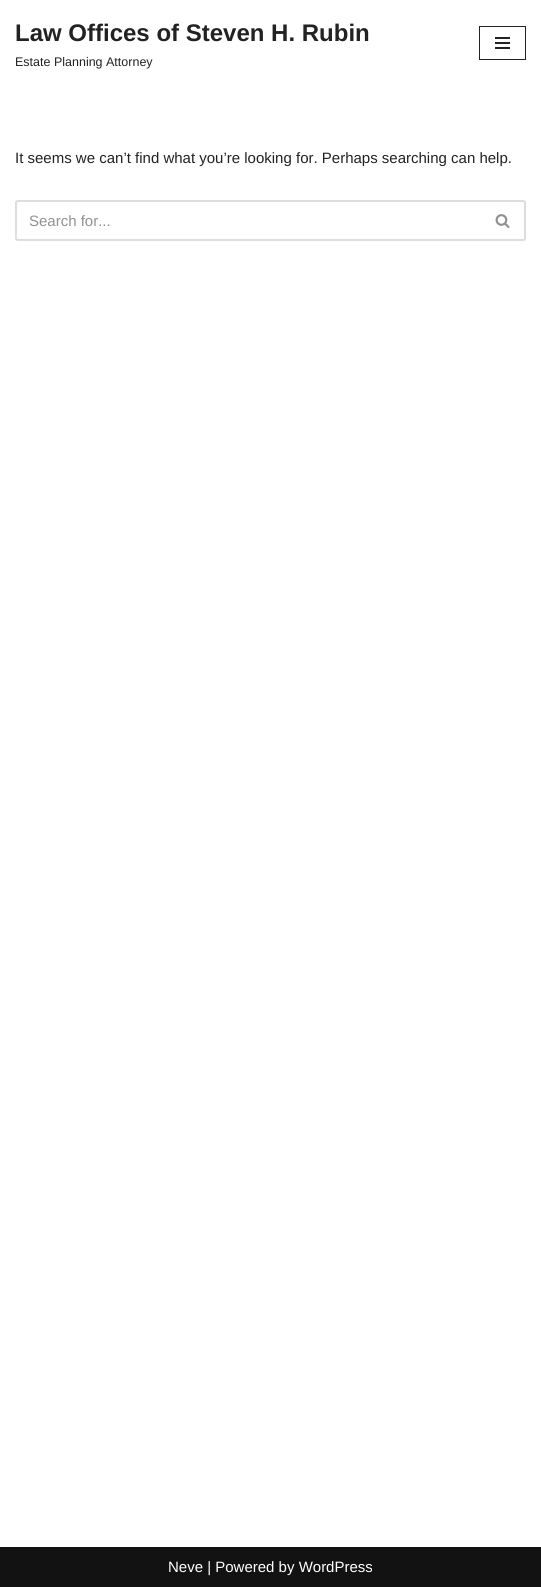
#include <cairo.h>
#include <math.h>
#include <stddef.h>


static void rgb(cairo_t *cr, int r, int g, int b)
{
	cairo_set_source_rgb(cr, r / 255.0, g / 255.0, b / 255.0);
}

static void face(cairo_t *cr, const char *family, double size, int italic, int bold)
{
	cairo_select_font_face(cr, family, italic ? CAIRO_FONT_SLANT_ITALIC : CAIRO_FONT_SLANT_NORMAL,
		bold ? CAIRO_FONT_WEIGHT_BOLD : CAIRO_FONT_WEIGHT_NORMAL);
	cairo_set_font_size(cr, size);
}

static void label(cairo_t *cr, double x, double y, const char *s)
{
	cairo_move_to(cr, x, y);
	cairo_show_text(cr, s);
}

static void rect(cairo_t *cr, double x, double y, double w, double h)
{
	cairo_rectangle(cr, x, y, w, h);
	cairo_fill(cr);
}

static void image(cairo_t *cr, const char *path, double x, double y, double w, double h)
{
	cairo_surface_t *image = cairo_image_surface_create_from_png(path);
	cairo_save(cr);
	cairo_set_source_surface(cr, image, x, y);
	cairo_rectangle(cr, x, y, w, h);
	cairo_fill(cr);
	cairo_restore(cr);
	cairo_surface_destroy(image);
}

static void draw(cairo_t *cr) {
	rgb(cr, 255, 255, 255);
	cairo_paint(cr);
	face(cr, "Liberation Sans", 24, 0, 1);
	rgb(cr, 34, 34, 34);
	label(cr, 15, 41, "Law Offices of Steven H. Rubin");
	face(cr, "Liberation Sans", 12.5, 0, 0);
	label(cr, 15, 66, "Estate Planning Attorney");
	cairo_rectangle(cr, 479.5, 26.5, 46, 33);
	cairo_set_line_width(cr, 1);
	cairo_stroke(cr);
	rect(cr, 495, 37, 15, 2);
	rect(cr, 495, 42, 15, 2);
	rect(cr, 495, 47, 15, 2);
	face(cr, "Liberation Sans", 15, 0, 0);
	label(cr, 15, 163, "It seems we can’t find what you’re looking for. Perhaps searching can help.");
	rgb(cr, 221, 221, 221);
	cairo_set_fill_rule(cr, CAIRO_FILL_RULE_EVEN_ODD);
	cairo_new_path(cr);
	cairo_move_to(cr, 18, 200);
	cairo_line_to(cr, 481, 200);
	cairo_line_to(cr, 481, 241);
	cairo_line_to(cr, 18, 241);
	cairo_curve_to(cr, 16, 241, 15, 240, 15, 238);
	cairo_line_to(cr, 15, 203);
	cairo_curve_to(cr, 15, 201, 16, 200, 18, 200);
	cairo_close_path(cr);
	cairo_move_to(cr, 18, 202);
	cairo_line_to(cr, 481, 202);
	cairo_line_to(cr, 481, 239);
	cairo_line_to(cr, 18, 239);
	cairo_curve_to(cr, 16, 239, 17, 234, 17, 232);
	cairo_line_to(cr, 17, 203);
	cairo_close_path(cr);
	cairo_fill(cr);
	rgb(cr, 145, 145, 145);
	label(cr, 29, 226, "Search for...");
	rgb(cr, 221, 221, 221);
	cairo_new_path(cr);
	cairo_move_to(cr, 481, 200);
	cairo_line_to(cr, 523, 200);
	cairo_curve_to(cr, 525, 200, 526, 201, 526, 203);
	cairo_line_to(cr, 526, 238);
	cairo_curve_to(cr, 526, 240, 525, 241, 523, 241);
	cairo_line_to(cr, 481, 241);
	cairo_close_path(cr);
	cairo_move_to(cr, 481, 202);
	cairo_line_to(cr, 523, 202);
	cairo_curve_to(cr, 524, 202, 524, 202, 524, 203);
	cairo_line_to(cr, 524, 238);
	cairo_curve_to(cr, 524, 239, 524, 239, 523, 239);
	cairo_line_to(cr, 481, 239);
	cairo_close_path(cr);
	cairo_fill(cr);
	image(cr, "image0.png", 495, 214, 15, 14);
	rgb(cr, 18, 18, 18);
	rect(cr, 0, 1547, 541, 40);
	rgb(cr, 255, 255, 255);
	label(cr, 168, 1572, "Neve | Powered by WordPress");
}

int main(void) {
	cairo_surface_t *surface = cairo_image_surface_create(CAIRO_FORMAT_RGB24, 541, 1587);
	cairo_t *cr = cairo_create(surface);
	cairo_font_options_t *options = cairo_font_options_create();
	cairo_font_options_set_hint_metrics(options, CAIRO_HINT_METRICS_OFF);
	cairo_font_options_set_hint_style(options, CAIRO_HINT_STYLE_NONE);
	cairo_set_font_options(cr, options);
	cairo_set_miter_limit(cr, 4);
	draw(cr);
	cairo_surface_write_to_png(surface, "render.png");
	cairo_font_options_destroy(options);
	cairo_destroy(cr);
	cairo_surface_destroy(surface);
	return 0;
}
